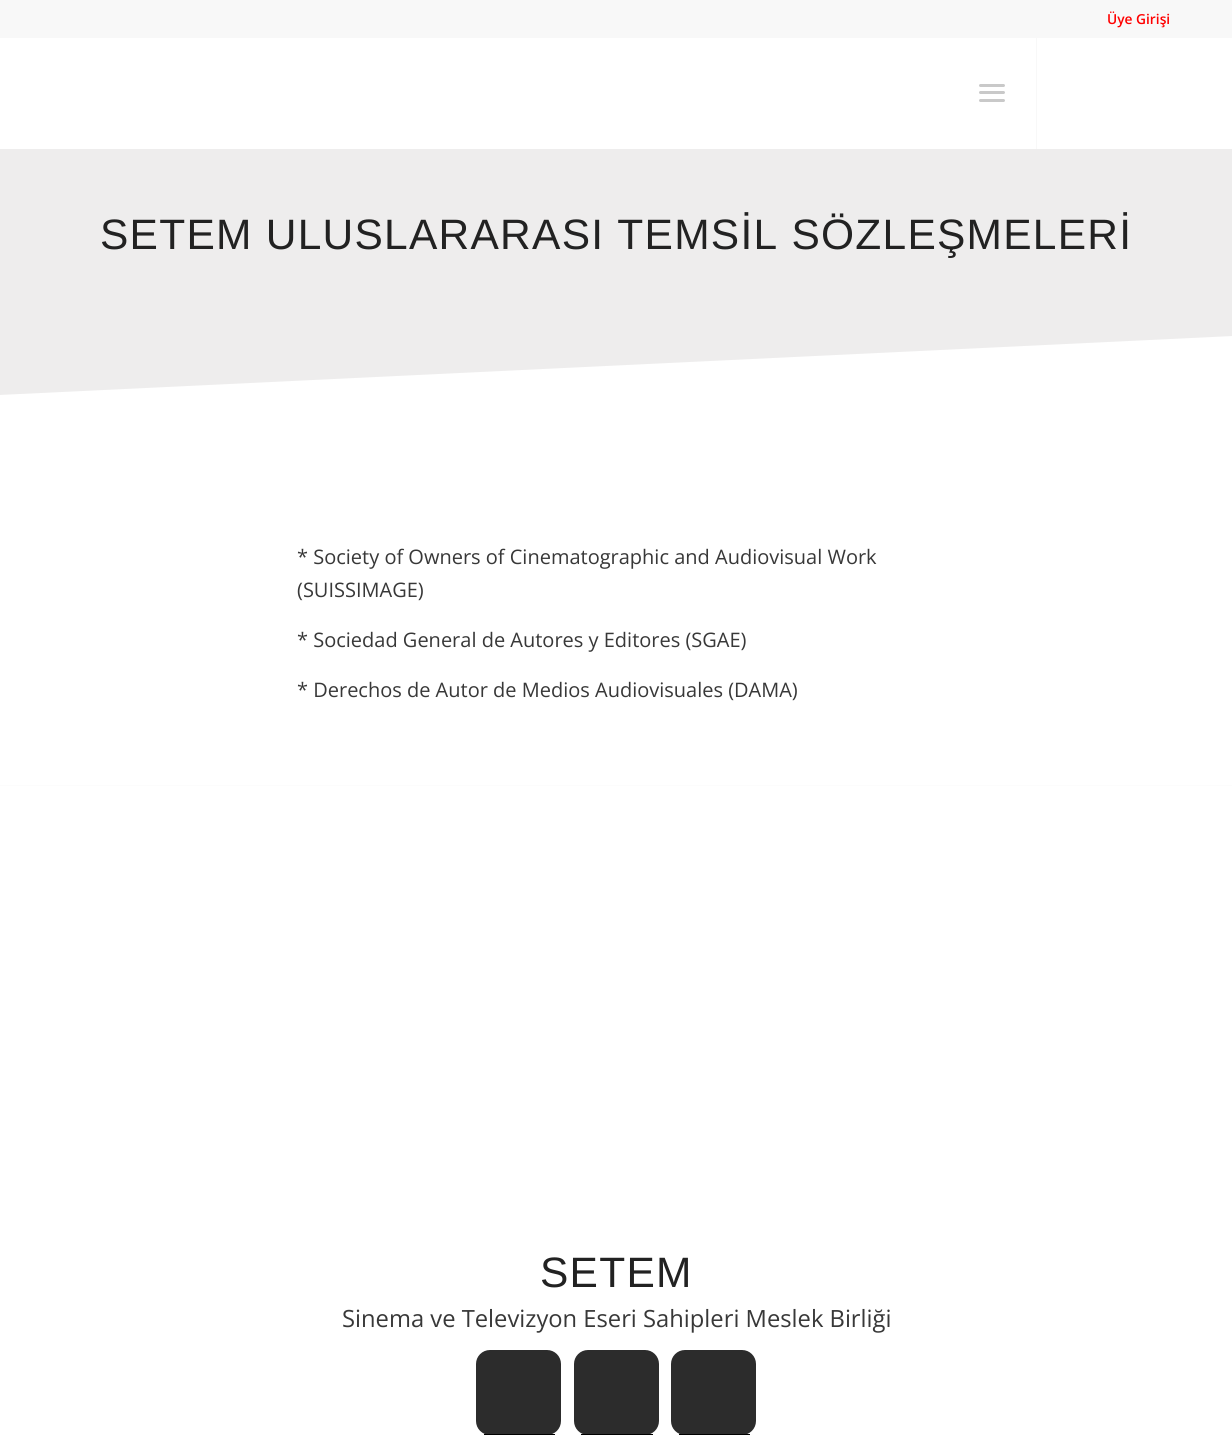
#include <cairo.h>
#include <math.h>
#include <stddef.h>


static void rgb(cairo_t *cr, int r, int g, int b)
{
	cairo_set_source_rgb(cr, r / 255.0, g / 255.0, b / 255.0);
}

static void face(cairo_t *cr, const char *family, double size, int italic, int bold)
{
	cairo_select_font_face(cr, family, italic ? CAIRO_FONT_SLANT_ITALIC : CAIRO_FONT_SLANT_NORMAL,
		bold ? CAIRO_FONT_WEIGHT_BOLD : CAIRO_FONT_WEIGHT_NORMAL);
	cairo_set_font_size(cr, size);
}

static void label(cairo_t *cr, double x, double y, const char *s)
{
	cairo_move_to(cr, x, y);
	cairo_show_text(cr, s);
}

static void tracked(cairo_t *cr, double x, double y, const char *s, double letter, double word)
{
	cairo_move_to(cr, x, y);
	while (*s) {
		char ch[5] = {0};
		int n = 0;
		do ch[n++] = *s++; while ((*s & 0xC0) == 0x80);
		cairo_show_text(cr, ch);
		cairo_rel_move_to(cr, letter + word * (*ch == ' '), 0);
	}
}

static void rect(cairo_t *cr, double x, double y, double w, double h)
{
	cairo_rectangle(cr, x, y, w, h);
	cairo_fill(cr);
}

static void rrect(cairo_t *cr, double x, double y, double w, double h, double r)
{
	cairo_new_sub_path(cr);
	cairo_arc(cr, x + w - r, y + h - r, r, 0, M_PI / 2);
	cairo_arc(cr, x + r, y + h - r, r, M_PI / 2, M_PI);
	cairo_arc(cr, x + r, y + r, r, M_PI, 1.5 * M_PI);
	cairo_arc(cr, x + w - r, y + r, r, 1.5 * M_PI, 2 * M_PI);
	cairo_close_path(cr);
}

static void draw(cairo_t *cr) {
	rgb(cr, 255, 255, 255);
	cairo_paint(cr);
	rgb(cr, 248, 248, 248);
	rect(cr, 1036, 36, 1, 113);
	rect(cr, 0, 0, 1232, 38);
	face(cr, "Open Sans SemiBold", 13.75, 0, 0);
	rgb(cr, 255, 0, 0);
	label(cr, 1107, 24, "Üye Girişi");
	rgb(cr, 201, 201, 201);
	rrect(cr, 979, 91, 26, 3, 1.5);
	cairo_fill(cr);
	rrect(cr, 979, 84, 26, 3, 1.5);
	cairo_fill(cr);
	rrect(cr, 979, 99, 26, 3, 1.5);
	cairo_fill(cr);
	rgb(cr, 238, 237, 237);
	rect(cr, 0, 149, 1232, 184);
	face(cr, "Liberation Sans", 42.5, 0, 0);
	rgb(cr, 34, 34, 34);
	tracked(cr, 100, 249, "SETEM ULUSLARARASI TEMSİL SÖZLEŞMELERİ", 1.25, 0);
	cairo_save(cr);
	cairo_rectangle(cr, 0, 333, 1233, 62);
	cairo_clip(cr);
	rgb(cr, 238, 237, 237);
	cairo_new_path(cr);
	cairo_move_to(cr, 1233, 336);
	cairo_line_to(cr, 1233, 332);
	cairo_line_to(cr, -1, 332);
	cairo_line_to(cr, -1, 395);
	cairo_close_path(cr);
	cairo_fill(cr);
	cairo_restore(cr);
	face(cr, "Open Sans", 20, 0, 0);
	rgb(cr, 56, 56, 56);
	label(cr, 297, 564, "* Society of Owners of Cinematographic and Audiovisual Work");
	label(cr, 297, 597, "(SUISSIMAGE)");
	label(cr, 297, 647, "* Sociedad General de Autores y Editores (SGAE)");
	label(cr, 297, 697, "* Derechos de Autor de Medios Audiovisuales (DAMA)");
	rgb(cr, 252, 252, 252);
	rect(cr, 0, 785, 1232, 1);
	face(cr, "Liberation Sans", 42.5, 0, 0);
	rgb(cr, 34, 34, 34);
	tracked(cr, 540, 1287, "SETEM", 1.25, 0);
	face(cr, "Open Sans", 23.75, 0, 0);
	rgb(cr, 56, 56, 56);
	label(cr, 342, 1327, "Sinema ve Televizyon Eseri Sahipleri Meslek Birliği");
	rgb(cr, 44, 44, 44);
	rrect(cr, 476, 1350, 85, 85, 14);
	cairo_fill(cr);
	rgb(cr, 0, 0, 0);
	rect(cr, 484, 1434, 71, 1);
	rgb(cr, 44, 44, 44);
	rrect(cr, 574, 1350, 85, 85, 14);
	cairo_fill(cr);
	rgb(cr, 0, 0, 0);
	rect(cr, 581, 1434, 72, 1);
	rgb(cr, 44, 44, 44);
	rrect(cr, 671, 1350, 85, 85, 14);
	cairo_fill(cr);
	rgb(cr, 0, 0, 0);
	rect(cr, 679, 1434, 71, 1);
}

int main(void) {
	cairo_surface_t *surface = cairo_image_surface_create(CAIRO_FORMAT_RGB24, 1232, 1441);
	cairo_t *cr = cairo_create(surface);
	cairo_font_options_t *options = cairo_font_options_create();
	cairo_font_options_set_hint_metrics(options, CAIRO_HINT_METRICS_OFF);
	cairo_font_options_set_hint_style(options, CAIRO_HINT_STYLE_NONE);
	cairo_set_font_options(cr, options);
	cairo_set_miter_limit(cr, 4);
	draw(cr);
	cairo_surface_write_to_png(surface, "render.png");
	cairo_font_options_destroy(options);
	cairo_destroy(cr);
	cairo_surface_destroy(surface);
	return 0;
}
